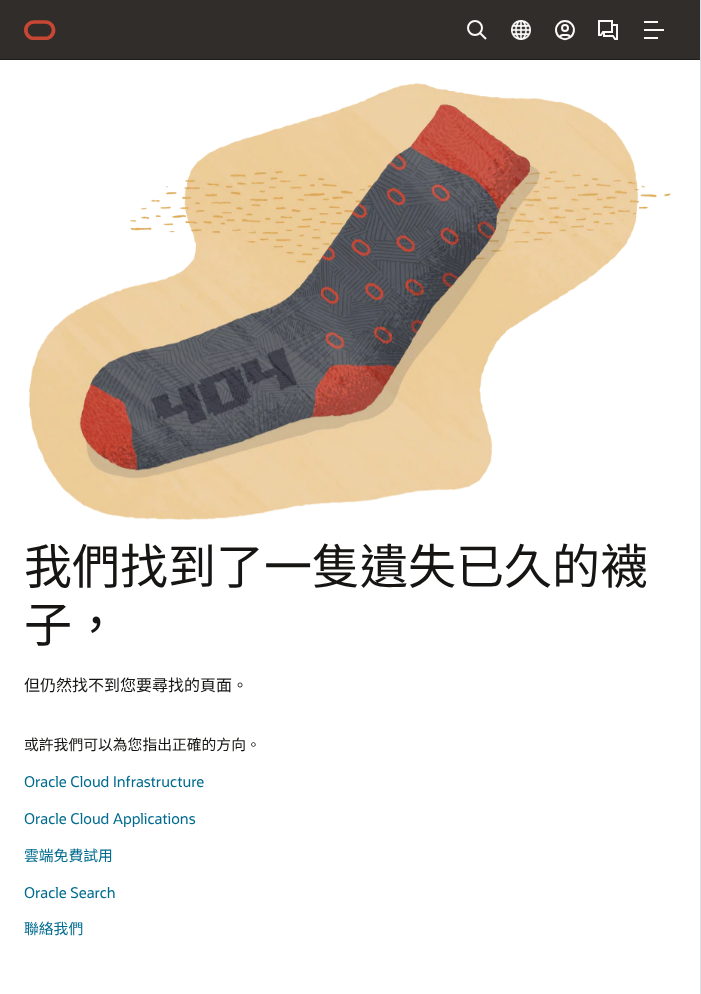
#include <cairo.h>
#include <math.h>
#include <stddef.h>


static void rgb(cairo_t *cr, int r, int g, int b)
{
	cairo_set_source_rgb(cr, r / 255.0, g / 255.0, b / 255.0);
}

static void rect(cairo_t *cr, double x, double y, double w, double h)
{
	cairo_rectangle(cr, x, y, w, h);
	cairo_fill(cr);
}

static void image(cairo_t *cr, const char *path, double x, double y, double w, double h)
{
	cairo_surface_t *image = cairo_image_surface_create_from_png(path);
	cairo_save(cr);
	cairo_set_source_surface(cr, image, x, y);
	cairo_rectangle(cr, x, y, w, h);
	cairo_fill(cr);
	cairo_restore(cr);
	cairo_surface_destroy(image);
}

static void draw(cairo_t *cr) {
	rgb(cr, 255, 255, 255);
	cairo_paint(cr);
	rgb(cr, 218, 222, 224);
	rect(cr, 700, 0, 1, 994);
	image(cr, "image0.png", 0, 0, 700, 936);
}

int main(void) {
	cairo_surface_t *surface = cairo_image_surface_create(CAIRO_FORMAT_RGB24, 701, 994);
	cairo_t *cr = cairo_create(surface);
	cairo_font_options_t *options = cairo_font_options_create();
	cairo_font_options_set_hint_metrics(options, CAIRO_HINT_METRICS_OFF);
	cairo_font_options_set_hint_style(options, CAIRO_HINT_STYLE_NONE);
	cairo_set_font_options(cr, options);
	cairo_set_miter_limit(cr, 4);
	draw(cr);
	cairo_surface_write_to_png(surface, "render.png");
	cairo_font_options_destroy(options);
	cairo_destroy(cr);
	cairo_surface_destroy(surface);
	return 0;
}
